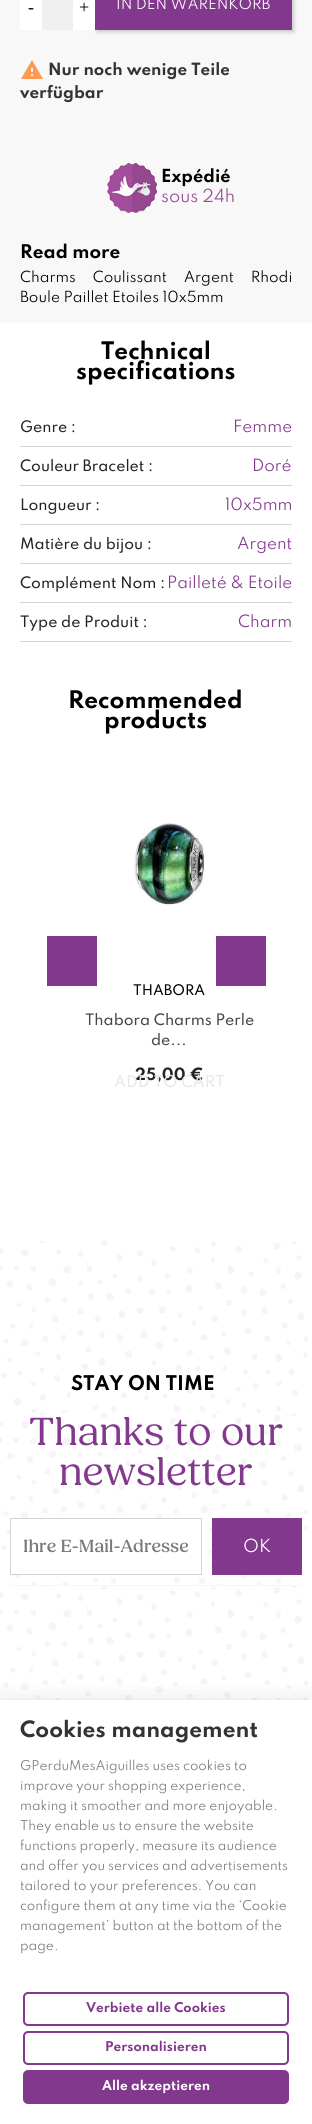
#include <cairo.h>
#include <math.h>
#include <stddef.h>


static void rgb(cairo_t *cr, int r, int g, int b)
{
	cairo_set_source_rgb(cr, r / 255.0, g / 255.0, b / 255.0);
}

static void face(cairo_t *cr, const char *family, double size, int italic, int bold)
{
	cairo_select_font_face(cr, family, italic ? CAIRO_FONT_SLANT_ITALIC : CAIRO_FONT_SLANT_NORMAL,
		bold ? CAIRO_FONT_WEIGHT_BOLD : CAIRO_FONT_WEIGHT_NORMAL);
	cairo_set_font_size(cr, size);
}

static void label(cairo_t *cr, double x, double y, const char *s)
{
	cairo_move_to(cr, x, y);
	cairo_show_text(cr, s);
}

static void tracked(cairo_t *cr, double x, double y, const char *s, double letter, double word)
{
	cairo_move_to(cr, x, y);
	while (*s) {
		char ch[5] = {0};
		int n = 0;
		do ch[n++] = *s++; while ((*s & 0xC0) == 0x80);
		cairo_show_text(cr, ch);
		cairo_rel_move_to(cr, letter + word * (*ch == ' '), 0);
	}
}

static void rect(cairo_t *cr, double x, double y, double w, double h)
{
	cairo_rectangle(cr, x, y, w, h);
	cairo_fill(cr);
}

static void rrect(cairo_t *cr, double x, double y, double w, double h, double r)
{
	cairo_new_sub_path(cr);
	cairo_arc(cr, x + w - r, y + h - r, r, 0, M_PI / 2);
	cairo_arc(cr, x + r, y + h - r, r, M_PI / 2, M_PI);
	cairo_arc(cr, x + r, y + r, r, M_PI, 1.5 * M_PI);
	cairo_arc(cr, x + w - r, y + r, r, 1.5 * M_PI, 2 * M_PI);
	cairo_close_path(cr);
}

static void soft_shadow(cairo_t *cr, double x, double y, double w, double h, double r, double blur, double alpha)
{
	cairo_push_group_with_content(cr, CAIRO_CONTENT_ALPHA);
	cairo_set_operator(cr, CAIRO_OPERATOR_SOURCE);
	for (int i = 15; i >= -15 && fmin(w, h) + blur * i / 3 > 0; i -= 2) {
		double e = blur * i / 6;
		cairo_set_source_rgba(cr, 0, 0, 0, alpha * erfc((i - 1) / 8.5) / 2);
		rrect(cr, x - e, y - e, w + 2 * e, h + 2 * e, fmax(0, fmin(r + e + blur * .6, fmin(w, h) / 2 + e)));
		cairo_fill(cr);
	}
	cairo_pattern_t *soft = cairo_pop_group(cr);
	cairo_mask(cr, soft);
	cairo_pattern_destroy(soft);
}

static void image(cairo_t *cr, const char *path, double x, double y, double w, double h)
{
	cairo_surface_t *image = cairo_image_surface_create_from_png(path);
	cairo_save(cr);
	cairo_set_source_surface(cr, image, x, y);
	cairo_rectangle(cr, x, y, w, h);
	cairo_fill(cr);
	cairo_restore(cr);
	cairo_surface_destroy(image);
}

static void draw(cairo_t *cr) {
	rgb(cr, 255, 255, 255);
	cairo_paint(cr);
	rgb(cr, 248, 248, 248);
	rect(cr, 0, 0, 312, 323);
	rgb(cr, 240, 240, 240);
	rect(cr, 42, 0, 31, 30);
	rgb(cr, 255, 255, 255);
	rect(cr, 20, 0, 22, 30);
	face(cr, "Liberation Serif", 18, 0, 0);
	rgb(cr, 0, 0, 0);
	label(cr, 28, 13, "-");
	rgb(cr, 0, 0, 0);
	soft_shadow(cr, 97, -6, 197, 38, 0, 2, 0.2);
	rgb(cr, 255, 255, 255);
	rect(cr, 73, 0, 22, 30);
	rgb(cr, 0, 0, 0);
	label(cr, 79, 13, "+");
	rgb(cr, 130, 56, 140);
	rect(cr, 95, 0, 197, 30);
	face(cr, "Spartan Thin", 13.5, 0, 0);
	rgb(cr, 255, 255, 255);
	label(cr, 116, 9, "IN DEN WARENKORB");
	image(cr, "image0.png", 21, 60, 22, 19);
	face(cr, "Spartan Thin", 15, 0, 1);
	rgb(cr, 51, 51, 51);
	label(cr, 48, 75, "Nur noch wenige Teile");
	label(cr, 20, 98, "verfügbar");
	image(cr, "image1.png", 107, 163, 50, 50);
	face(cr, "Spartan Thin", 16, 0, 1);
	rgb(cr, 0, 0, 0);
	label(cr, 161, 182, "Expédié");
	face(cr, "Spartan Thin", 16, 0, 0);
	rgb(cr, 149, 76, 147);
	label(cr, 161, 202, "sous 24h");
	face(cr, "Spartan Thin", 16.75, 0, 1);
	rgb(cr, 0, 0, 0);
	label(cr, 20, 258, "Read more");
	face(cr, "Spartan Thin", 13.6, 0, 0);
	tracked(cr, 20, 282, "Charms Coulissant Argent Rhodi", 0, 13.5);
	label(cr, 20, 302, "Boule Paillet Etoiles 10x5mm");
	face(cr, "Spartan Thin", 21.5, 0, 1);
	label(cr, 101, 359, "Technical");
	label(cr, 76, 379, "specifications");
	rgb(cr, 211, 211, 211);
	rect(cr, 20, 446, 272, 1);
	face(cr, "Spartan Thin Medium", 14, 0, 0);
	rgb(cr, 35, 35, 35);
	label(cr, 20, 432, "Genre :");
	face(cr, "Spartan Thin", 15, 0, 0);
	rgb(cr, 130, 56, 140);
	label(cr, 233, 432, "Femme");
	rgb(cr, 211, 211, 211);
	rect(cr, 20, 485, 272, 1);
	face(cr, "Spartan Thin Medium", 14, 0, 0);
	rgb(cr, 35, 35, 35);
	label(cr, 20, 471, "Couleur Bracelet :");
	face(cr, "Spartan Thin", 15, 0, 0);
	rgb(cr, 130, 56, 140);
	label(cr, 252, 471, "Doré");
	rgb(cr, 211, 211, 211);
	rect(cr, 20, 524, 272, 1);
	face(cr, "Spartan Thin Medium", 14, 0, 0);
	rgb(cr, 35, 35, 35);
	label(cr, 20, 510, "Longueur :");
	face(cr, "Spartan Thin", 15, 0, 0);
	rgb(cr, 130, 56, 140);
	label(cr, 225, 510, "10x5mm");
	rgb(cr, 211, 211, 211);
	rect(cr, 20, 563, 272, 1);
	face(cr, "Spartan Thin Medium", 14, 0, 0);
	rgb(cr, 35, 35, 35);
	label(cr, 20, 549, "Matière du bijou :");
	face(cr, "Spartan Thin", 15, 0, 0);
	rgb(cr, 130, 56, 140);
	label(cr, 237, 549, "Argent");
	rgb(cr, 211, 211, 211);
	rect(cr, 20, 602, 272, 1);
	face(cr, "Spartan Thin Medium", 14, 0, 0);
	rgb(cr, 35, 35, 35);
	label(cr, 20, 588, "Complément Nom :");
	face(cr, "Spartan Thin", 15, 0, 0);
	rgb(cr, 130, 56, 140);
	label(cr, 167, 588, "Pailleté & Etoile");
	rgb(cr, 211, 211, 211);
	rect(cr, 20, 641, 272, 1);
	face(cr, "Spartan Thin Medium", 14, 0, 0);
	rgb(cr, 35, 35, 35);
	label(cr, 20, 627, "Type de Produit :");
	face(cr, "Spartan Thin", 15, 0, 0);
	rgb(cr, 130, 56, 140);
	label(cr, 238, 627, "Charm");
	face(cr, "Spartan Thin", 21.5, 0, 1);
	rgb(cr, 0, 0, 0);
	label(cr, 68, 708, "Recommended");
	label(cr, 104, 728, "products");
	rgb(cr, 130, 56, 140);
	rect(cr, 47, 936, 50, 50);
	rect(cr, 216, 936, 50, 50);
	image(cr, "image2.png", 134, 823, 70, 82);
	face(cr, "Spartan Thin Medium", 13, 0, 0);
	rgb(cr, 0, 0, 0);
	label(cr, 133, 995, "THABORA");
	face(cr, "Spartan Thin Medium", 14, 0, 0);
	rgb(cr, 69, 69, 69);
	label(cr, 85, 1025, "Thabora Charms Perle");
	label(cr, 151, 1045, "de...");
	face(cr, "Spartan Thin", 15, 0, 1);
	rgb(cr, 35, 35, 35);
	label(cr, 135, 1080, "25,00 €");
	face(cr, "Spartan Thin Medium", 14.5, 0, 0);
	rgb(cr, 231, 231, 231);
	label(cr, 114, 1087, "ADD TO CART");
	image(cr, "image3.png", 0, 1241, 308, 459);
	face(cr, "Spartan Thin", 18, 0, 1);
	rgb(cr, 0, 0, 0);
	label(cr, 71, 1390, "STAY ON TIME");
	face(cr, "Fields", 40, 0, 0);
	rgb(cr, 130, 56, 140);
	label(cr, 29, 1445, "Thanks to our");
	label(cr, 59, 1485, "newsletter");
	rgb(cr, 246, 246, 246);
	rect(cr, 10, 1585, 292, 1);
	rgb(cr, 255, 255, 255);
	cairo_rectangle(cr, 10.5, 1518.5, 191, 56);
	cairo_fill_preserve(cr);
	rgb(cr, 211, 211, 211);
	cairo_set_line_width(cr, 1);
	cairo_stroke(cr);
	face(cr, "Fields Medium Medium", 18, 0, 0);
	rgb(cr, 122, 122, 122);
	label(cr, 23, 1552, "Ihre E-Mail-Adresse");
	rgb(cr, 130, 56, 140);
	rect(cr, 212, 1518, 90, 57);
	face(cr, "Spartan Thin", 16, 0, 0);
	rgb(cr, 255, 255, 255);
	label(cr, 243, 1552, "OK");
	rgb(cr, 0, 0, 0);
	soft_shadow(cr, 0, 1704, 312, 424, 0, 12, 0.15);
	rgb(cr, 255, 255, 255);
	rect(cr, 0, 1700, 312, 424);
	face(cr, "Spartan Thin", 20, 0, 1);
	rgb(cr, 51, 51, 51);
	label(cr, 20, 1737, "Cookies management");
	face(cr, "Spartan Thin", 12, 0, 0);
	rgb(cr, 122, 122, 122);
	label(cr, 20, 1770, "GPerduMesAiguilles uses cookies to");
	label(cr, 20, 1790, "improve your shopping experience,");
	label(cr, 20, 1810, "making it smoother and more enjoyable.");
	label(cr, 20, 1830, "They enable us to ensure the website");
	label(cr, 20, 1850, "functions properly, measure its audience");
	label(cr, 20, 1870, "and offer you services and advertisements");
	label(cr, 20, 1890, "tailored to your preferences. You can");
	label(cr, 20, 1910, "configure them at any time via the ‘Cookie");
	label(cr, 20, 1930, "management’ button at the bottom of the");
	label(cr, 20, 1950, "page.");
	rrect(cr, 24, 1993, 264, 32, 4);
	rgb(cr, 130, 56, 140);
	cairo_set_line_width(cr, 2);
	cairo_stroke(cr);
	face(cr, "Spartan Thin", 12, 0, 1);
	label(cr, 86, 2012, "Verbiete alle Cookies");
	rrect(cr, 24, 2032, 264, 32, 4);
	cairo_stroke(cr);
	label(cr, 105, 2051, "Personalisieren");
	rrect(cr, 24, 2071, 264, 32, 4);
	cairo_fill_preserve(cr);
	cairo_stroke(cr);
	rgb(cr, 255, 255, 255);
	label(cr, 102, 2090, "Alle akzeptieren");
}

int main(void) {
	cairo_surface_t *surface = cairo_image_surface_create(CAIRO_FORMAT_RGB24, 312, 2124);
	cairo_t *cr = cairo_create(surface);
	cairo_font_options_t *options = cairo_font_options_create();
	cairo_font_options_set_hint_metrics(options, CAIRO_HINT_METRICS_OFF);
	cairo_font_options_set_hint_style(options, CAIRO_HINT_STYLE_NONE);
	cairo_set_font_options(cr, options);
	cairo_set_miter_limit(cr, 4);
	draw(cr);
	cairo_surface_write_to_png(surface, "render.png");
	cairo_font_options_destroy(options);
	cairo_destroy(cr);
	cairo_surface_destroy(surface);
	return 0;
}
